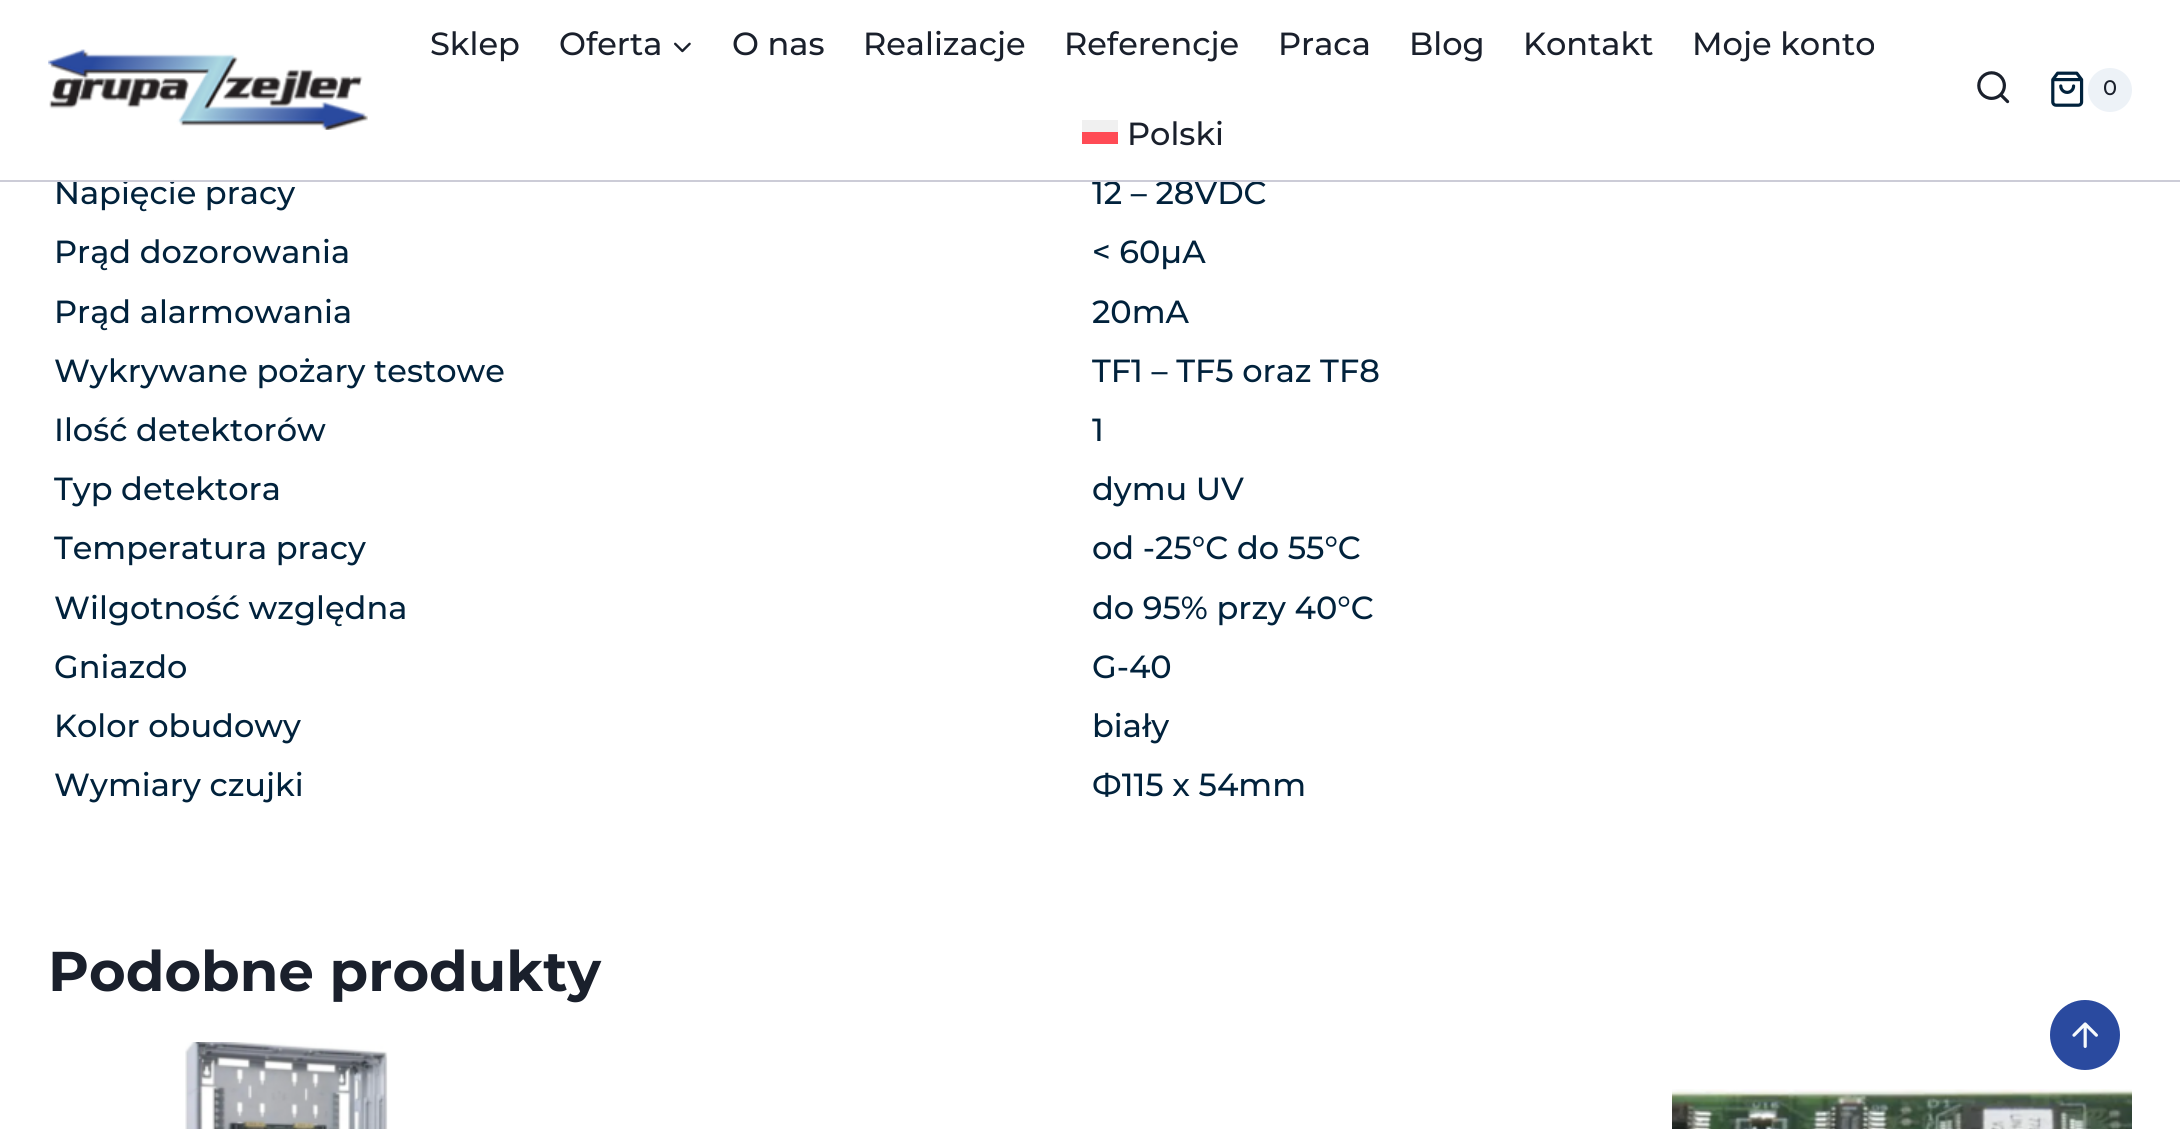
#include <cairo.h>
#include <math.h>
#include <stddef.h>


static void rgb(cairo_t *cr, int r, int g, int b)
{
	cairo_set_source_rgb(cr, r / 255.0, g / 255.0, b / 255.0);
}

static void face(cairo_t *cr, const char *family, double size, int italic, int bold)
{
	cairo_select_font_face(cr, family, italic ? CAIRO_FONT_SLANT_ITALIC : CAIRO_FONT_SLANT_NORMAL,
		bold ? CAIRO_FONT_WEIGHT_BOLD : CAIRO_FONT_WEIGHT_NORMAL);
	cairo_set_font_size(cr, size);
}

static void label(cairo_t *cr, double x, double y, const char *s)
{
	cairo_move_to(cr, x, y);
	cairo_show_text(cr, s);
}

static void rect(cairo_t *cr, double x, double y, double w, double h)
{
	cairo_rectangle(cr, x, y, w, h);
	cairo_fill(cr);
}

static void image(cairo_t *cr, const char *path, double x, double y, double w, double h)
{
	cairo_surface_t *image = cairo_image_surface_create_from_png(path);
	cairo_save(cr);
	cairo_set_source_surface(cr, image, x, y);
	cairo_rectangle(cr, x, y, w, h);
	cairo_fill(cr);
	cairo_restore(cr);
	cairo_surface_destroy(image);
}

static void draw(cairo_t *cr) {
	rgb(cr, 255, 255, 255);
	cairo_paint(cr);
	face(cr, "Montserrat Medium", 32, 0, 0);
	rgb(cr, 1, 34, 60);
	label(cr, 54, 204, "Napięcie pracy");
	rgb(cr, 255, 255, 255);
	rect(cr, 124, 179, 49, 1);
	rgb(cr, 1, 34, 60);
	label(cr, 1092, 204, "12 – 28VDC");
	rgb(cr, 204, 204, 215);
	rect(cr, 0, 180, 2180, 2);
	image(cr, "image0.png", 48, 49, 320, 81);
	rgb(cr, 26, 32, 44);
	label(cr, 430, 55, "Sklep");
	label(cr, 559, 55, "Oferta");
	image(cr, "image1.png", 674, 42, 17, 11);
	label(cr, 732, 55, "O nas");
	label(cr, 863, 55, "Realizacje");
	label(cr, 1064, 55, "Referencje");
	label(cr, 1278, 55, "Praca");
	label(cr, 1409, 55, "Blog");
	label(cr, 1523, 55, "Kontakt");
	label(cr, 1692, 55, "Moje konto");
	rgb(cr, 240, 240, 240);
	rect(cr, 1082, 120, 36, 12);
	rgb(cr, 26, 32, 44);
	label(cr, 1127, 145, "Polski");
	rgb(cr, 255, 75, 85);
	rect(cr, 1082, 132, 36, 12);
	image(cr, "image2.png", 1977, 71, 33, 33);
	image(cr, "image3.png", 2051, 71, 33, 36);
	rgb(cr, 237, 242, 247);
	cairo_arc(cr, 2110, 90, 22, 0, 2 * M_PI);
	cairo_fill(cr);
	face(cr, "Montserrat Medium", 21, 0, 0);
	rgb(cr, 26, 32, 44);
	label(cr, 2103, 95, "0");
	face(cr, "Montserrat Medium", 32, 0, 0);
	rgb(cr, 1, 34, 60);
	label(cr, 54, 263, "Prąd dozorowania");
	label(cr, 1092, 263, "< 60µA");
	label(cr, 54, 323, "Prąd alarmowania");
	label(cr, 1092, 323, "20mA");
	label(cr, 54, 382, "Wykrywane pożary testowe");
	label(cr, 1092, 382, "TF1 – TF5 oraz TF8");
	label(cr, 54, 441, "Ilość detektorów");
	label(cr, 1092, 441, "1");
	label(cr, 54, 500, "Typ detektora");
	label(cr, 1092, 500, "dymu UV");
	label(cr, 54, 559, "Temperatura pracy");
	label(cr, 1092, 559, "od -25°C do 55°C");
	label(cr, 54, 619, "Wilgotność względna");
	label(cr, 1092, 619, "do 95% przy 40°C");
	label(cr, 54, 678, "Gniazdo");
	label(cr, 1092, 678, "G-40");
	label(cr, 54, 737, "Kolor obudowy");
	label(cr, 1092, 737, "biały");
	label(cr, 54, 796, "Wymiary czujki");
	label(cr, 1092, 796, "Ф115 x 54mm");
	face(cr, "Montserrat", 56, 0, 1);
	rgb(cr, 26, 32, 44);
	label(cr, 48, 991, "Podobne produkty");
	image(cr, "image4.png", 185, 1042, 203, 87);
	image(cr, "image5.png", 1672, 1089, 460, 40);
	rgb(cr, 42, 74, 159);
	cairo_arc(cr, 2085, 1035, 35, 0, 2 * M_PI);
	cairo_fill(cr);
	image(cr, "image6.png", 2072, 1022, 26, 26);
}

int main(void) {
	cairo_surface_t *surface = cairo_image_surface_create(CAIRO_FORMAT_RGB24, 2180, 1129);
	cairo_t *cr = cairo_create(surface);
	cairo_font_options_t *options = cairo_font_options_create();
	cairo_font_options_set_hint_metrics(options, CAIRO_HINT_METRICS_OFF);
	cairo_font_options_set_hint_style(options, CAIRO_HINT_STYLE_NONE);
	cairo_set_font_options(cr, options);
	cairo_set_miter_limit(cr, 4);
	draw(cr);
	cairo_surface_write_to_png(surface, "render.png");
	cairo_font_options_destroy(options);
	cairo_destroy(cr);
	cairo_surface_destroy(surface);
	return 0;
}
